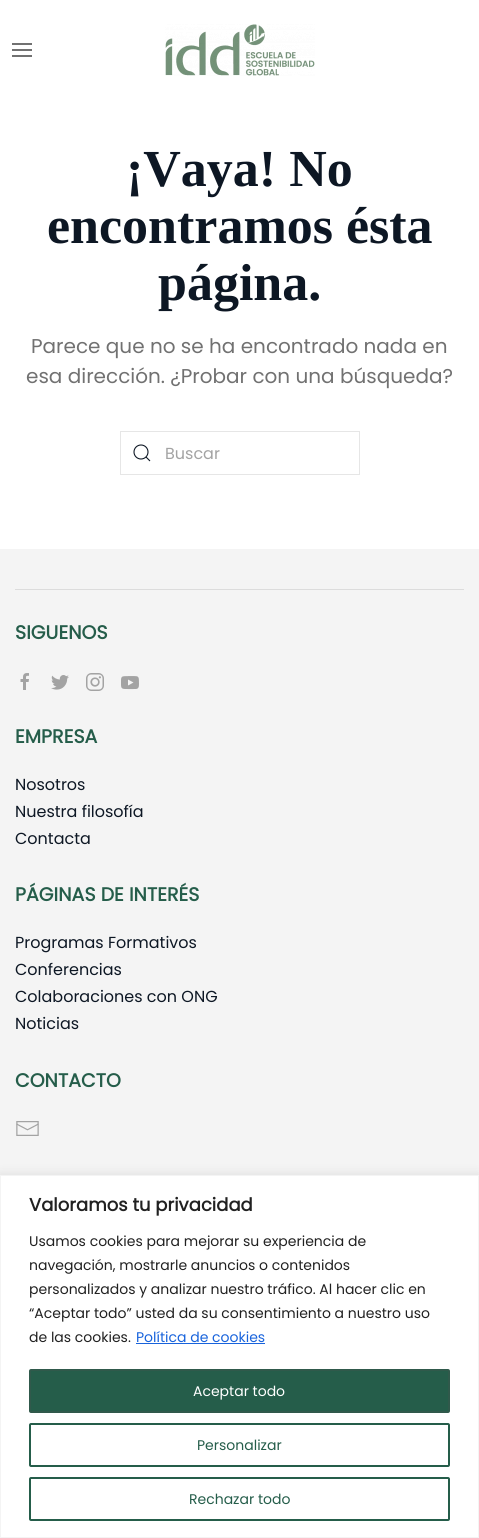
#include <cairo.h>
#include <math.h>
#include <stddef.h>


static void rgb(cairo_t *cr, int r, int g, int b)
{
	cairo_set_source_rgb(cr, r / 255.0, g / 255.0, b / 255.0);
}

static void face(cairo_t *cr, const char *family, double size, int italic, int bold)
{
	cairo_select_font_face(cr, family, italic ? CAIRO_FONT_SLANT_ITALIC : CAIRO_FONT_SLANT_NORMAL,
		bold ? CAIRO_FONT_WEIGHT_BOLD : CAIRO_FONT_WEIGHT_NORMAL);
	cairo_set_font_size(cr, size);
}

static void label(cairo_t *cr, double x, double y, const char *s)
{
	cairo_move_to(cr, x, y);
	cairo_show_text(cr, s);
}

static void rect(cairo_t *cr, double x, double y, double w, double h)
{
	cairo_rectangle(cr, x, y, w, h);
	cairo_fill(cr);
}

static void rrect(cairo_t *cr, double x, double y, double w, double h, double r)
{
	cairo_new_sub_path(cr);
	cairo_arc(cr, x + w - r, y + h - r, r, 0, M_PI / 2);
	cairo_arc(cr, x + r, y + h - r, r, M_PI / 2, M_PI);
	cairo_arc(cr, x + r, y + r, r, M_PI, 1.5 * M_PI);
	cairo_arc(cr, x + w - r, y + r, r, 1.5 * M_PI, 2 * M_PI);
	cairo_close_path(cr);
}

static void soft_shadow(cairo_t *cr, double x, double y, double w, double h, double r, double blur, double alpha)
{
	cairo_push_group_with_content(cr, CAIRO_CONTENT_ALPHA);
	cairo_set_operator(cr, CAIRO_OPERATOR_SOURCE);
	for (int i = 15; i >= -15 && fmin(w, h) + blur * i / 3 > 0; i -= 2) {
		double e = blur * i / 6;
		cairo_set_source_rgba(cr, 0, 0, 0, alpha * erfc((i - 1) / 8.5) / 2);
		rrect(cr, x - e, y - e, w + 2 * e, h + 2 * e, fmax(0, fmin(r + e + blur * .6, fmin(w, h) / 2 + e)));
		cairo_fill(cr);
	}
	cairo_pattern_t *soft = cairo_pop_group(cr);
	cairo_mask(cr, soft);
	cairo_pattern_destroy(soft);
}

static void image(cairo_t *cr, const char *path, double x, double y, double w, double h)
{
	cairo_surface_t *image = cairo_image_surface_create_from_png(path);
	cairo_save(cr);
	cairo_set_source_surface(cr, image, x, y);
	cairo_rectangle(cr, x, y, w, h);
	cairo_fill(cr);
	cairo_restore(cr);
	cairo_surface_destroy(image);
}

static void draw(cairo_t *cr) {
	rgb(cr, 255, 255, 255);
	cairo_paint(cr);
	rgb(cr, 113, 113, 113);
	rect(cr, 12, 43, 20, 2);
	rect(cr, 12, 49, 20, 2);
	rect(cr, 12, 55, 20, 2);
	image(cr, "image0.png", 165, 24, 150, 52);
	face(cr, "Liberation Serif", 52, 0, 1);
	rgb(cr, 13, 23, 36);
	label(cr, 126, 186, "¡Vaya! No");
	label(cr, 47, 243, "encontramos ésta");
	label(cr, 158, 300, "página.");
	face(cr, "Poppins", 20, 0, 0);
	rgb(cr, 113, 113, 113);
	label(cr, 31, 353, "Parece que no se ha encontrado nada en");
	label(cr, 26, 383, "esa dirección. ¿Probar con una búsqueda?");
	cairo_rectangle(cr, 120.5, 431.5, 239, 43);
	rgb(cr, 230, 230, 230);
	cairo_set_line_width(cr, 1);
	cairo_stroke(cr);
	cairo_arc(cr, 141, 452, 7, 0, 2 * M_PI);
	rgb(cr, 13, 23, 36);
	cairo_set_line_width(cr, 1.1);
	cairo_stroke(cr);
	cairo_new_path(cr);
	cairo_move_to(cr, 146, 457);
	cairo_line_to(cr, 150, 461);
	cairo_close_path(cr);
	cairo_stroke(cr);
	face(cr, "Poppins", 16, 0, 0);
	rgb(cr, 163, 163, 163);
	label(cr, 165, 459, "Buscar");
	rgb(cr, 244, 244, 244);
	rect(cr, 0, 549, 479, 626);
	rgb(cr, 220, 220, 220);
	rect(cr, 15, 589, 449, 1);
	face(cr, "Poppins", 19, 0, 1);
	rgb(cr, 37, 93, 74);
	label(cr, 15, 639, "SIGUENOS");
	image(cr, "image1.png", 20, 673, 9, 17);
	image(cr, "image2.png", 51, 675, 18, 15);
	image(cr, "image3.png", 86, 673, 18, 18);
	image(cr, "image4.png", 121, 676, 18, 14);
	label(cr, 15, 743, "EMPRESA");
	face(cr, "Poppins", 16, 0, 0);
	rgb(cr, 13, 23, 36);
	label(cr, 15, 790, "Nosotros");
	label(cr, 15, 817, "Nuestra filosofía");
	label(cr, 15, 844, "Contacta");
	face(cr, "Poppins", 19, 0, 1);
	rgb(cr, 37, 93, 74);
	label(cr, 15, 901, "PÁGINAS DE INTERÉS");
	face(cr, "Poppins", 16, 0, 0);
	rgb(cr, 13, 23, 36);
	label(cr, 15, 948, "Programas Formativos");
	label(cr, 15, 975, "Conferencias");
	label(cr, 15, 1002, "Colaboraciones con ONG");
	label(cr, 15, 1029, "Noticias");
	face(cr, "Poppins", 19, 0, 1);
	rgb(cr, 37, 93, 74);
	label(cr, 15, 1087, "CONTACTO");
	image(cr, "image5.png", 16, 1121, 23, 15);
	rgb(cr, 172, 171, 171);
	soft_shadow(cr, 0, 1174, 479, 363, 0, 5, 0.3);
	rgb(cr, 255, 255, 255);
	cairo_rectangle(cr, 0.5, 1175.5, 478, 362);
	cairo_fill_preserve(cr);
	rgb(cr, 244, 244, 244);
	cairo_set_line_width(cr, 1);
	cairo_stroke(cr);
	face(cr, "Poppins", 18, 0, 1);
	rgb(cr, 33, 33, 33);
	label(cr, 29, 1211, "Valoramos tu privacidad");
	face(cr, "Poppins", 14, 0, 0);
	label(cr, 29, 1246, "Usamos cookies para mejorar su experiencia de");
	label(cr, 29, 1270, "navegación, mostrarle anuncios o contenidos");
	label(cr, 29, 1294, "personalizados y analizar nuestro tráfico. Al hacer clic en");
	label(cr, 29, 1318, "“Aceptar todo” usted da su consentimiento a nuestro uso");
	label(cr, 29, 1342, "de las cookies.");
	rgb(cr, 24, 99, 220);
	label(cr, 136, 1342, "Política de cookies");
	rect(cr, 136, 1343, 129, 1);
	rgb(cr, 37, 93, 74);
	rrect(cr, 30, 1370, 419, 42, 1);
	cairo_fill_preserve(cr);
	rgb(cr, 48, 89, 75);
	cairo_set_line_width(cr, 2);
	cairo_stroke(cr);
	rgb(cr, 255, 255, 255);
	label(cr, 193, 1396, "Aceptar todo");
	rrect(cr, 30, 1424, 419, 42, 1);
	rgb(cr, 37, 93, 74);
	cairo_stroke(cr);
	label(cr, 197, 1450, "Personalizar");
	rrect(cr, 30, 1478, 419, 42, 1);
	cairo_stroke(cr);
	label(cr, 189, 1504, "Rechazar todo");
}

int main(void) {
	cairo_surface_t *surface = cairo_image_surface_create(CAIRO_FORMAT_RGB24, 479, 1538);
	cairo_t *cr = cairo_create(surface);
	cairo_font_options_t *options = cairo_font_options_create();
	cairo_font_options_set_hint_metrics(options, CAIRO_HINT_METRICS_OFF);
	cairo_font_options_set_hint_style(options, CAIRO_HINT_STYLE_NONE);
	cairo_set_font_options(cr, options);
	cairo_set_miter_limit(cr, 4);
	draw(cr);
	cairo_surface_write_to_png(surface, "render.png");
	cairo_font_options_destroy(options);
	cairo_destroy(cr);
	cairo_surface_destroy(surface);
	return 0;
}
